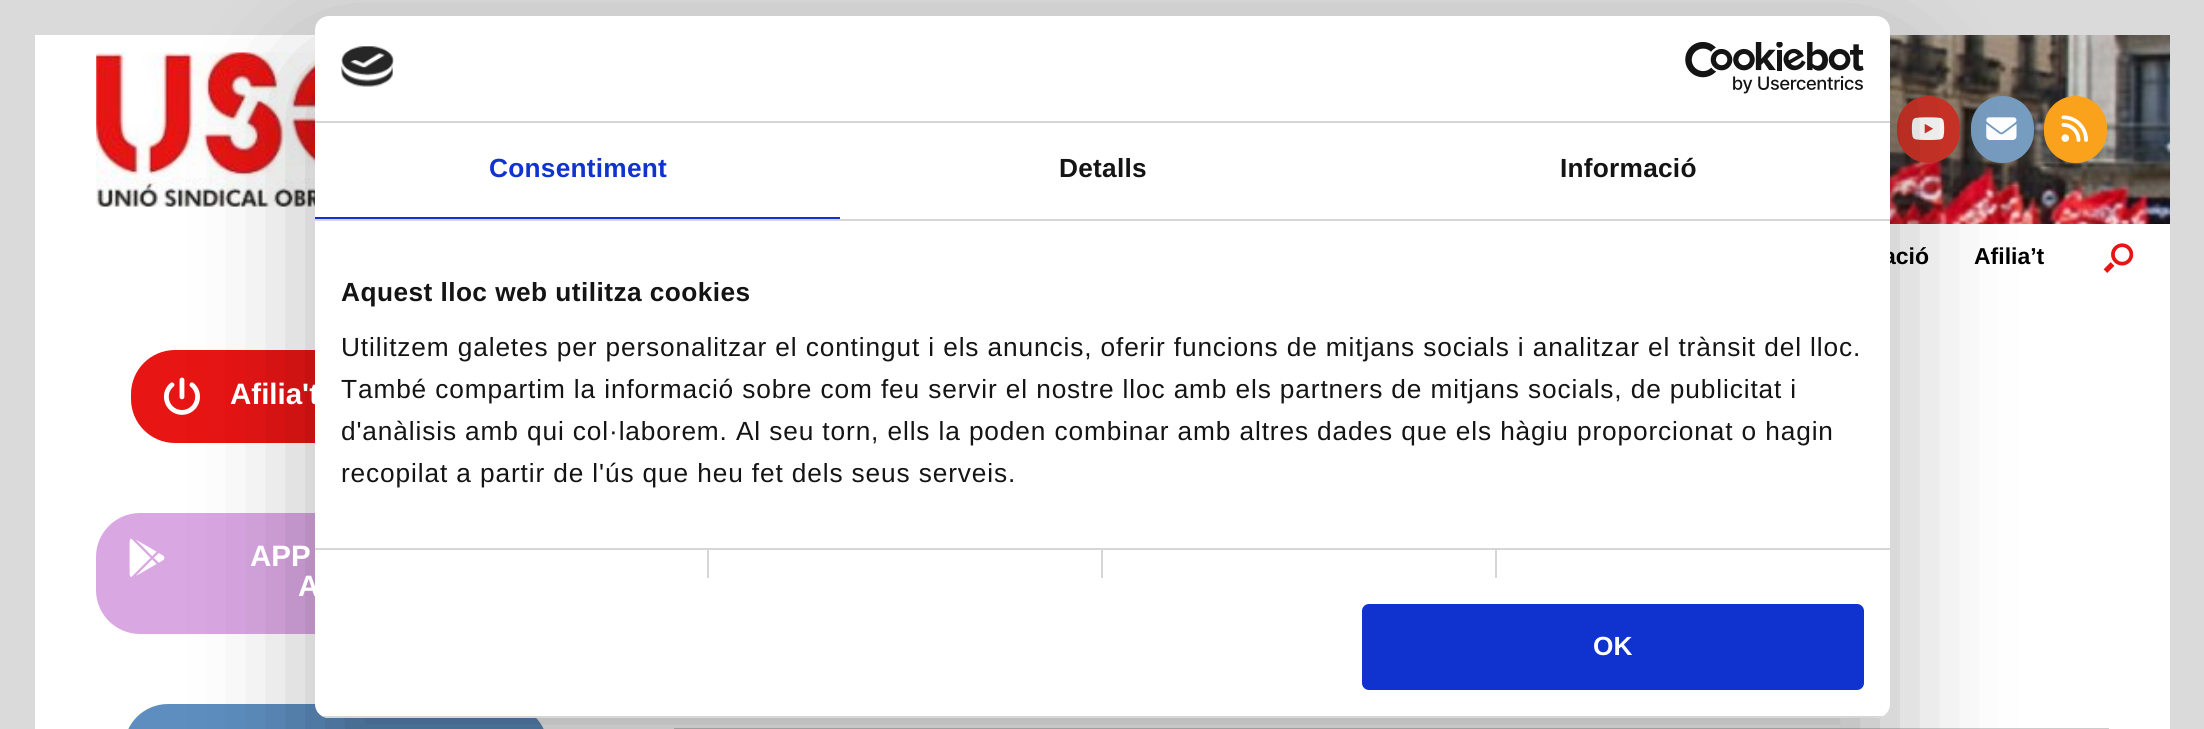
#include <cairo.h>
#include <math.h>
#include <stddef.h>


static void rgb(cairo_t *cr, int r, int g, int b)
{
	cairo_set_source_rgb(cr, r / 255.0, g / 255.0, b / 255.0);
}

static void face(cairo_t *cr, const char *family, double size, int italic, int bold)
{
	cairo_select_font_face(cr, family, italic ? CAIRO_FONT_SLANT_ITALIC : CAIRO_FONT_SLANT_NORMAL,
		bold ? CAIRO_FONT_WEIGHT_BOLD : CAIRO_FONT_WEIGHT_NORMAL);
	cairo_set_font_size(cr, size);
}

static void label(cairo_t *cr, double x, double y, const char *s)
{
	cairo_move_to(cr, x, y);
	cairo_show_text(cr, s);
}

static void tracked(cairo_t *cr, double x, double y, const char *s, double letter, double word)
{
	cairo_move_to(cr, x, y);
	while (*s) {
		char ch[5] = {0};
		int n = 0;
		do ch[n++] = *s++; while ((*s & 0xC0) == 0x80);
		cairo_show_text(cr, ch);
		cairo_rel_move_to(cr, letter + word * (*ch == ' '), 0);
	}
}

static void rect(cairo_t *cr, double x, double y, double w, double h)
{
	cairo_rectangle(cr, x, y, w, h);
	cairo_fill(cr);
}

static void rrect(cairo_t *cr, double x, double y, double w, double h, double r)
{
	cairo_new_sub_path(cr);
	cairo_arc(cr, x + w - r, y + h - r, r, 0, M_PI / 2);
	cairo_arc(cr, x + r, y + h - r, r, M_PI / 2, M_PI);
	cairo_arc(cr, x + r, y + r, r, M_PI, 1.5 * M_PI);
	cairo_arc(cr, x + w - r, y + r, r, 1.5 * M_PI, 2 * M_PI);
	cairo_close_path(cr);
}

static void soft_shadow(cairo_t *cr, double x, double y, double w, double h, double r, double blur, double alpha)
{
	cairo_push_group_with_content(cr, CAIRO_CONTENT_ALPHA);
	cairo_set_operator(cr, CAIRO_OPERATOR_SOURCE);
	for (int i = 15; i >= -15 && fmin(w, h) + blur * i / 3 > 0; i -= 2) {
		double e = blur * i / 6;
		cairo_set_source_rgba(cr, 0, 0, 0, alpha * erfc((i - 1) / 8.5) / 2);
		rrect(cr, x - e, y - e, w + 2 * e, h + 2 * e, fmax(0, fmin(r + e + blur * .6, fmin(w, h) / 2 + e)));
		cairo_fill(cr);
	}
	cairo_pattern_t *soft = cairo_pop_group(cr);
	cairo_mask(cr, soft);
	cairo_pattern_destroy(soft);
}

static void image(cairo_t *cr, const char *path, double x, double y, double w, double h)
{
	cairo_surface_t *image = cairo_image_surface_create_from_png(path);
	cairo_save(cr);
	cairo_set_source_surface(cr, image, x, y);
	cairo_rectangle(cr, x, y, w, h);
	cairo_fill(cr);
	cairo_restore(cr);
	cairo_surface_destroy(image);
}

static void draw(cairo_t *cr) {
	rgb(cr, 218, 218, 218);
	cairo_paint(cr);
	rgb(cr, 255, 255, 255);
	rect(cr, 35, 35, 280, 189);
	image(cr, "image2.png", 1890, 35, 280, 189);
	image(cr, "image3.png", 96, 52, 219, 155);
	rgb(cr, 207, 52, 39);
	rrect(cr, 1898, 97, 61, 65, 30.5);
	cairo_fill_preserve(cr);
	cairo_stroke(cr);
	image(cr, "image4.png", 1911, 117, 34, 23);
	rgb(cr, 118, 156, 191);
	rrect(cr, 1972, 97, 61, 65, 30.5);
	cairo_fill_preserve(cr);
	cairo_stroke(cr);
	image(cr, "image5.png", 1986, 117, 31, 23);
	rgb(cr, 250, 162, 27);
	rrect(cr, 2045, 97, 61, 65, 30.5);
	cairo_fill_preserve(cr);
	cairo_stroke(cr);
	image(cr, "image6.png", 2061, 115, 27, 27);
	rgb(cr, 255, 255, 255);
	rect(cr, 35, 224, 2135, 505);
	rgb(cr, 231, 21, 20);
	rrect(cr, 132, 351, 406, 91, 43);
	cairo_fill_preserve(cr);
	cairo_stroke(cr);
	image(cr, "image8.png", 163, 377, 37, 38);
	rgb(cr, 217, 167, 226);
	rrect(cr, 97, 514, 476, 119, 43);
	cairo_fill_preserve(cr);
	cairo_stroke(cr);
	image(cr, "image9.png", 129, 538, 36, 39);
	rgb(cr, 93, 142, 191);
	rrect(cr, 125, 705, 422, 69, 43);
	cairo_fill_preserve(cr);
	cairo_stroke(cr);
	rgb(cr, 204, 204, 204);
	rect(cr, 674, 728, 1435, 1);
	rgb(cr, 0, 0, 0);
	soft_shadow(cr, 315, 72, 1575, 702, 14, 59.5, 0.3);
	face(cr, "Liberation Sans", 23, 0, 1);
	rgb(cr, 0, 0, 0);
	label(cr, 1883, 264, "ació");
	rgb(cr, 255, 255, 255);
	rrect(cr, 315, 16, 1575, 702, 14);
	cairo_fill(cr);
	rgb(cr, 214, 214, 214);
	rect(cr, 315, 121, 1575, 2);
	image(cr, "image0.png", 341, 46, 53, 41);
	image(cr, "image1.png", 1685, 42, 179, 52);
	rect(cr, 315, 219, 1575, 2);
	rgb(cr, 16, 50, 207);
	rect(cr, 315, 217, 525, 2);
	face(cr, "Liberation Sans", 26.25, 0, 1);
	tracked(cr, 489, 177, "Consentiment", 0.25, 0);
	rgb(cr, 20, 20, 20);
	tracked(cr, 1059, 177, "Detalls", 0.25, 0);
	tracked(cr, 1560, 177, "Informació", 0.25, 0);
	rgb(cr, 214, 214, 214);
	rect(cr, 315, 548, 1575, 2);
	rgb(cr, 20, 20, 20);
	tracked(cr, 341, 301, "Aquest lloc web utilitza cookies", 0.45, 0);
	face(cr, "Liberation Sans", 26.25, 0, 0);
	tracked(cr, 341, 356, "Utilitzem galetes per personalitzar el contingut i els anuncis, oferir funcions de mitjans socials i analitzar el trànsit del lloc.", 0.88, 0);
	tracked(cr, 341, 398, "També compartim la informació sobre com feu servir el nostre lloc amb els partners de mitjans socials, de publicitat i", 0.88, 0);
	tracked(cr, 341, 440, "d'anàlisis amb qui col·laborem. Al seu torn, ells la poden combinar amb altres dades que els hàgiu proporcionat o hagin", 0.88, 0);
	tracked(cr, 341, 482, "recopilat a partir de l'ús que heu fet dels seus serveis.", 0.88, 0);
	rgb(cr, 214, 214, 214);
	rect(cr, 707, 550, 2, 28);
	rect(cr, 1101, 550, 2, 28);
	rect(cr, 1495, 550, 2, 28);
	cairo_save(cr);
	rrect(cr, 315, 16, 1575, 702, 14);
	cairo_clip(cr);
	rect(cr, 315, 716, 1575, 2);
	cairo_restore(cr);
	rgb(cr, 16, 50, 207);
	rrect(cr, 1364, 606, 498, 82, 5);
	cairo_fill_preserve(cr);
	cairo_set_line_width(cr, 4);
	cairo_stroke(cr);
	face(cr, "Liberation Sans", 26.25, 0, 1);
	rgb(cr, 255, 255, 255);
	label(cr, 1593, 655, "OK");
	face(cr, "Liberation Sans", 23, 0, 1);
	rgb(cr, 0, 0, 0);
	label(cr, 1974, 264, "Afilia’t");
	image(cr, "image7.png", 2103, 243, 31, 30);
	face(cr, "Liberation Sans", 29.5, 0, 1);
	rgb(cr, 255, 255, 255);
	label(cr, 230, 404, "Afilia't");
	label(cr, 250, 566, "APP");
	label(cr, 298, 596, "A");
}

int main(void) {
	cairo_surface_t *surface = cairo_image_surface_create(CAIRO_FORMAT_RGB24, 2204, 729);
	cairo_t *cr = cairo_create(surface);
	cairo_font_options_t *options = cairo_font_options_create();
	cairo_font_options_set_hint_metrics(options, CAIRO_HINT_METRICS_OFF);
	cairo_font_options_set_hint_style(options, CAIRO_HINT_STYLE_NONE);
	cairo_set_font_options(cr, options);
	cairo_set_miter_limit(cr, 4);
	draw(cr);
	cairo_surface_write_to_png(surface, "render.png");
	cairo_font_options_destroy(options);
	cairo_destroy(cr);
	cairo_surface_destroy(surface);
	return 0;
}
